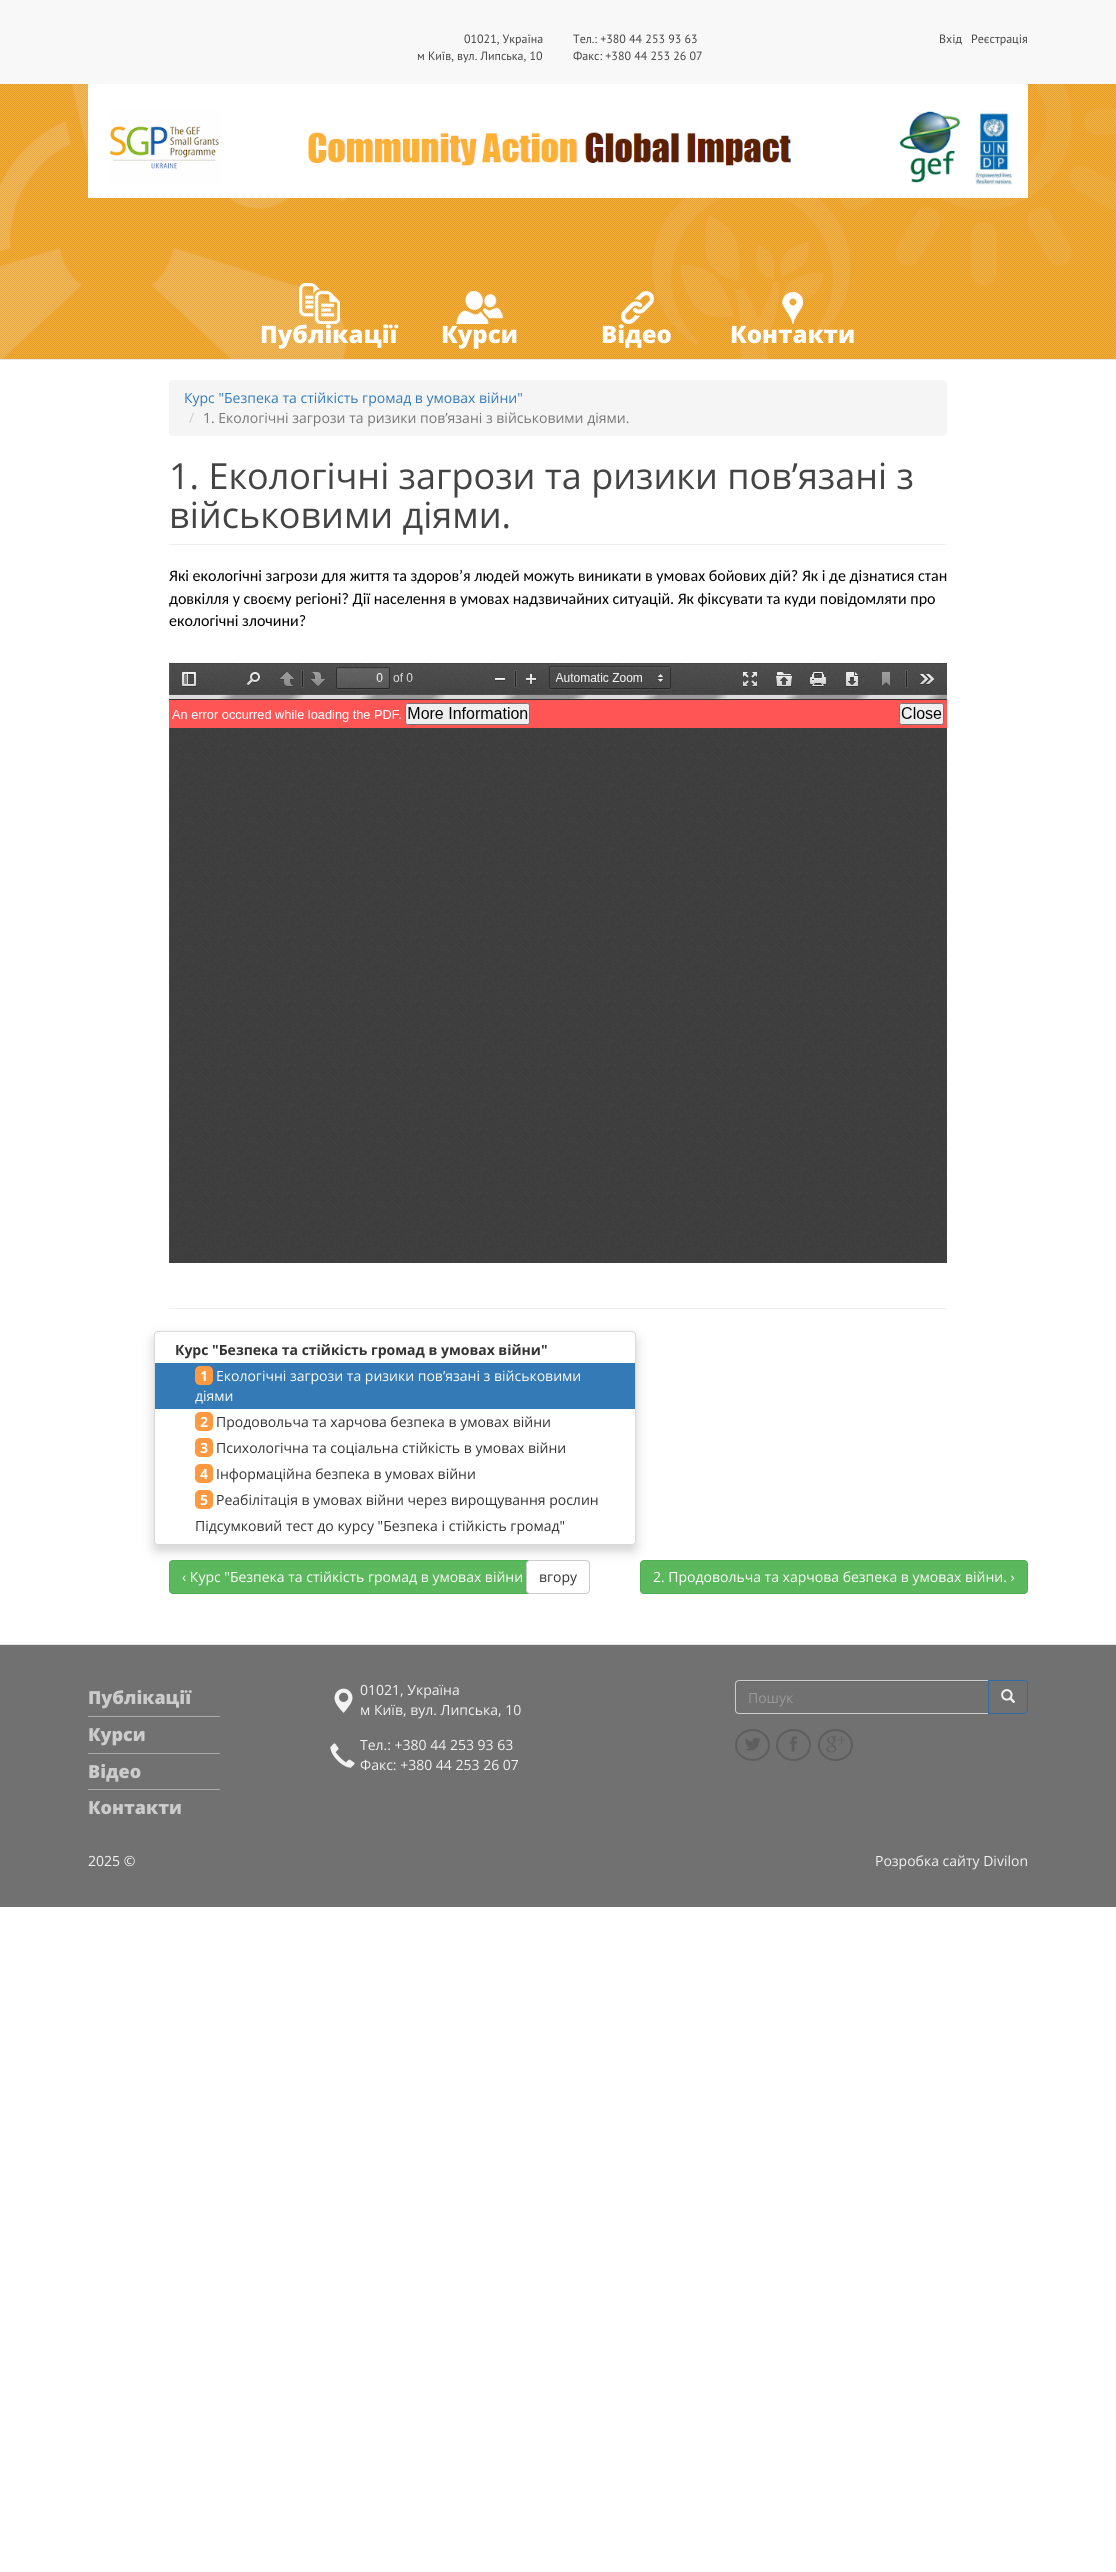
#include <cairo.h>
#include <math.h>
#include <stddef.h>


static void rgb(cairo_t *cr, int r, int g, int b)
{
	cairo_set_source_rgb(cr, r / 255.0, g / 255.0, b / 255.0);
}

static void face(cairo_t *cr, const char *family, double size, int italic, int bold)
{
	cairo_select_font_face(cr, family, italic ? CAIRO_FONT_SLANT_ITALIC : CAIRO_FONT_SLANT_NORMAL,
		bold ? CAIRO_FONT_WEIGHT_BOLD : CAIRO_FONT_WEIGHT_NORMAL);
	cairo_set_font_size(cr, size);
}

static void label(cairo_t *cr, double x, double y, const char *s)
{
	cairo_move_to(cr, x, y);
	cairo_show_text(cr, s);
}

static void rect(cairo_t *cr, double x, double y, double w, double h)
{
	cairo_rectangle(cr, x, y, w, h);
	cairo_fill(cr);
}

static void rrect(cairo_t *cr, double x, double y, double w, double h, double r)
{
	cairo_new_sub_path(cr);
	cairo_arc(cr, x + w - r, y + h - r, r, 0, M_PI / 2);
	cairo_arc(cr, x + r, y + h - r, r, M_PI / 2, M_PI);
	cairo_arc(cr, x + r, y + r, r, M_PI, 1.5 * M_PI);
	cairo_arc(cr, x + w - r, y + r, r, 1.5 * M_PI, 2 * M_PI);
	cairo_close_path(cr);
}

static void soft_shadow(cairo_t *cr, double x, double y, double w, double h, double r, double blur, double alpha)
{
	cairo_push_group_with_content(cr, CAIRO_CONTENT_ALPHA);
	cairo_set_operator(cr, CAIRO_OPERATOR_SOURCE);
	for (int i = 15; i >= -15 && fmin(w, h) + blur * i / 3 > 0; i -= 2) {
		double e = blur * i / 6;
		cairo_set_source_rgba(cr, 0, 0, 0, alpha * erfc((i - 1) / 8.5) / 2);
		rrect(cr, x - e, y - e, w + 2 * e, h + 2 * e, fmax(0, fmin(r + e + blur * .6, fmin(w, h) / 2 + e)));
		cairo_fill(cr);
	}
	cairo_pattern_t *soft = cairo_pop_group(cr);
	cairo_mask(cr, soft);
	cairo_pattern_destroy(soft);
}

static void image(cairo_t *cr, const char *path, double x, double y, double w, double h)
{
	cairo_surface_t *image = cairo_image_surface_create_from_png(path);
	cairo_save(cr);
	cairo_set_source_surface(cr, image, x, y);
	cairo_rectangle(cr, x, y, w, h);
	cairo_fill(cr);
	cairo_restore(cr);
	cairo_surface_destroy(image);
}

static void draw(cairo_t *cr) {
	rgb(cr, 255, 255, 255);
	cairo_paint(cr);
	rgb(cr, 248, 248, 248);
	rect(cr, 0, 0, 1116, 84);
	rgb(cr, 231, 231, 231);
	rect(cr, 0, 359, 1116, 1);
	face(cr, "PT Sans", 12, 0, 0);
	rgb(cr, 68, 68, 68);
	label(cr, 464, 43, "01021, Україна");
	label(cr, 417, 60, "м Київ, вул. Липська, 10");
	label(cr, 573, 43, "Тел.: +380 44 253 93 63");
	label(cr, 939, 43, "Вхід");
	label(cr, 971, 43, "Реєстрація");
	label(cr, 573, 60, "Факс: +380 44 253 26 07");
	rgb(cr, 252, 176, 52);
	rect(cr, 0, 84, 1116, 275);
	image(cr, "image0.png", 0, 84, 1116, 275);
	image(cr, "image1.png", 88, 84, 940, 114);
	image(cr, "image2.png", 299, 283, 41, 41);
	face(cr, "Open Sans ExtraBold", 24, 0, 0);
	rgb(cr, 255, 255, 255);
	label(cr, 260, 343, "Публікації");
	image(cr, "image3.png", 456, 291, 47, 33);
	label(cr, 441, 343, "Курси");
	image(cr, "image4.png", 621, 291, 33, 33);
	label(cr, 601, 343, "Відео");
	image(cr, "image5.png", 782, 292, 21, 32);
	label(cr, 730, 343, "Контакти");
	rgb(cr, 245, 245, 245);
	rrect(cr, 169, 380, 778, 56, 4);
	cairo_fill(cr);
	face(cr, "Open Sans", 14, 0, 0);
	rgb(cr, 51, 122, 183);
	label(cr, 184, 403, "Курс \"Безпека та стійкість громад в умовах війни\"");
	rgb(cr, 204, 204, 204);
	label(cr, 189, 423, "/");
	rgb(cr, 119, 119, 119);
	label(cr, 203, 423, "1. Екологічні загрози та ризики пов’язані з військовими діями.");
	rgb(cr, 238, 238, 238);
	rect(cr, 169, 544, 778, 1);
	face(cr, "Open Sans", 36, 0, 0);
	rgb(cr, 68, 68, 68);
	label(cr, 169, 489, "1. Екологічні загрози та ризики пов’язані з");
	label(cr, 169, 528, "військовими діями.");
	face(cr, "Carlito", 16, 0, 0);
	rgb(cr, 0, 0, 0);
	label(cr, 169, 581, "Які екологічні загрози для життя та здоров’я людей можуть виникати в умовах бойових дій? Як і де дізнатися стан");
	label(cr, 169, 604, "довкілля у своєму регіоні? Дії населення в умовах надзвичайних ситуацій. Як фіксувати та куди повідомляти про");
	label(cr, 169, 626, "екологічні злочини?");
	image(cr, "image6.png", 169, 663, 778, 600);
	rgb(cr, 238, 238, 238);
	rect(cr, 169, 1308, 778, 1);
	cairo_save(cr);
	cairo_set_fill_rule(cr, CAIRO_FILL_RULE_EVEN_ODD);
	cairo_new_path(cr);
	cairo_move_to(cr, 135, 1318);
	cairo_line_to(cr, 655, 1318);
	cairo_line_to(cr, 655, 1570);
	cairo_line_to(cr, 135, 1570);
	cairo_close_path(cr);
	cairo_move_to(cr, 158, 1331);
	cairo_line_to(cr, 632, 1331);
	cairo_curve_to(cr, 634, 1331, 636, 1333, 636, 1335);
	cairo_line_to(cr, 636, 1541);
	cairo_curve_to(cr, 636, 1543, 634, 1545, 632, 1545);
	cairo_line_to(cr, 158, 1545);
	cairo_curve_to(cr, 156, 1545, 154, 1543, 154, 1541);
	cairo_line_to(cr, 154, 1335);
	cairo_curve_to(cr, 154, 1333, 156, 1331, 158, 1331);
	cairo_close_path(cr);
	cairo_clip(cr);
	rgb(cr, 0, 0, 0);
	soft_shadow(cr, 154, 1337, 482, 214, 4, 6, 0.18);
	cairo_restore(cr);
	rrect(cr, 154.5, 1331.5, 481, 213, 3.5);
	cairo_set_source_rgba(cr, 0, 0, 0, 0.15);
	cairo_set_line_width(cr, 1);
	cairo_stroke(cr);
	face(cr, "Open Sans", 14, 0, 1);
	rgb(cr, 51, 51, 51);
	label(cr, 175, 1355, "Курс \"Безпека та стійкість громад в умовах війни\"");
	rgb(cr, 51, 122, 183);
	rect(cr, 155, 1363, 480, 46);
	rgb(cr, 253, 153, 65);
	rrect(cr, 195, 1366, 18, 19, 5);
	cairo_fill(cr);
	rgb(cr, 255, 255, 255);
	label(cr, 200, 1381, "1");
	face(cr, "Open Sans", 14, 0, 0);
	label(cr, 216, 1381, "Екологічні загрози та ризики пов’язані з військовими");
	label(cr, 195, 1401, "діями");
	rgb(cr, 253, 153, 65);
	rrect(cr, 195, 1412, 18, 19, 5);
	cairo_fill(cr);
	face(cr, "Open Sans", 14, 0, 1);
	rgb(cr, 255, 255, 255);
	label(cr, 200, 1427, "2");
	face(cr, "Open Sans", 14, 0, 0);
	rgb(cr, 51, 51, 51);
	label(cr, 216, 1427, "Продовольча та харчова безпека в умовах війни");
	rgb(cr, 253, 153, 65);
	rrect(cr, 195, 1438, 18, 19, 5);
	cairo_fill(cr);
	face(cr, "Open Sans", 14, 0, 1);
	rgb(cr, 255, 255, 255);
	label(cr, 200, 1453, "3");
	face(cr, "Open Sans", 14, 0, 0);
	rgb(cr, 51, 51, 51);
	label(cr, 216, 1453, "Психологічна та соціальна стійкість в умовах війни");
	rgb(cr, 253, 153, 65);
	rrect(cr, 195, 1464, 18, 19, 5);
	cairo_fill(cr);
	face(cr, "Open Sans", 14, 0, 1);
	rgb(cr, 255, 255, 255);
	label(cr, 200, 1479, "4");
	face(cr, "Open Sans", 14, 0, 0);
	rgb(cr, 51, 51, 51);
	label(cr, 216, 1479, "Інформаційна безпека в умовах війни");
	rgb(cr, 253, 153, 65);
	rrect(cr, 195, 1490, 18, 19, 5);
	cairo_fill(cr);
	face(cr, "Open Sans", 14, 0, 1);
	rgb(cr, 255, 255, 255);
	label(cr, 200, 1505, "5");
	face(cr, "Open Sans", 14, 0, 0);
	rgb(cr, 51, 51, 51);
	label(cr, 216, 1505, "Реабілітація в умовах війни через вирощування рослин");
	label(cr, 195, 1531, "Підсумковий тест до курсу \"Безпека і стійкість громад\"");
	rgb(cr, 92, 184, 92);
	rrect(cr, 169.5, 1560.5, 372, 33, 3.5);
	cairo_fill_preserve(cr);
	rgb(cr, 76, 174, 76);
	cairo_stroke(cr);
	rgb(cr, 255, 255, 255);
	label(cr, 182, 1582, "‹ Курс \"Безпека та стійкість громад в умовах війни");
	rrect(cr, 526.5, 1560.5, 63, 33, 3.5);
	cairo_fill_preserve(cr);
	rgb(cr, 204, 204, 204);
	cairo_stroke(cr);
	rgb(cr, 51, 51, 51);
	label(cr, 539, 1582, "вгору");
	rgb(cr, 92, 184, 92);
	rrect(cr, 640.5, 1560.5, 387, 33, 3.5);
	cairo_fill_preserve(cr);
	rgb(cr, 76, 174, 76);
	cairo_stroke(cr);
	rgb(cr, 255, 255, 255);
	label(cr, 653, 1582, "2. Продовольча та харчова безпека в умовах війни. ›");
	rgb(cr, 113, 113, 113);
	rect(cr, 0, 1645, 1116, 262);
	rgb(cr, 229, 229, 229);
	rect(cr, 0, 1644, 1116, 1);
	rgb(cr, 171, 170, 170);
	rect(cr, 88, 1716, 132, 1);
	face(cr, "Open Sans ExtraBold", 18, 0, 0);
	rgb(cr, 204, 204, 204);
	label(cr, 88, 1704, "Публікації");
	rgb(cr, 171, 170, 170);
	rect(cr, 88, 1753, 132, 1);
	rgb(cr, 204, 204, 204);
	label(cr, 88, 1741, "Курси");
	rgb(cr, 171, 170, 170);
	rect(cr, 88, 1789, 132, 1);
	rgb(cr, 204, 204, 204);
	label(cr, 88, 1778, "Відео");
	label(cr, 88, 1814, "Контакти");
	image(cr, "image7.png", 334, 1688, 19, 25);
	face(cr, "Open Sans", 14, 0, 0);
	rgb(cr, 242, 242, 242);
	label(cr, 360, 1695, "01021, Україна");
	label(cr, 360, 1715, "м Київ, вул. Липська, 10");
	image(cr, "image8.png", 330, 1743, 25, 25);
	label(cr, 360, 1750, "Тел.: +380 44 253 93 63");
	label(cr, 360, 1770, "Факс: +380 44 253 26 07");
	rgb(cr, 105, 105, 105);
	cairo_new_path(cr);
	cairo_move_to(cr, 739, 1682);
	cairo_line_to(cr, 988, 1682);
	cairo_line_to(cr, 988, 1681);
	cairo_line_to(cr, 739, 1681);
	cairo_curve_to(cr, 737, 1681, 736, 1683, 736, 1685);
	cairo_curve_to(cr, 736, 1683, 737, 1682, 739, 1682);
	cairo_close_path(cr);
	cairo_fill(cr);
	cairo_new_path(cr);
	cairo_move_to(cr, 739, 1680.5);
	cairo_line_to(cr, 988.5, 1680.5);
	cairo_line_to(cr, 988.5, 1713.5);
	cairo_line_to(cr, 739, 1713.5);
	cairo_curve_to(cr, 737, 1713.5, 735.5, 1712, 735.5, 1710);
	cairo_line_to(cr, 735.5, 1684);
	cairo_curve_to(cr, 735.5, 1682, 737, 1680.5, 739, 1680.5);
	cairo_close_path(cr);
	rgb(cr, 204, 204, 204);
	cairo_stroke(cr);
	rgb(cr, 153, 153, 153);
	label(cr, 748, 1703, "Пошук");
	cairo_new_path(cr);
	cairo_move_to(cr, 988.5, 1680.5);
	cairo_line_to(cr, 1024, 1680.5);
	cairo_curve_to(cr, 1026, 1680.5, 1027.5, 1682, 1027.5, 1684);
	cairo_line_to(cr, 1027.5, 1710);
	cairo_curve_to(cr, 1027.5, 1712, 1026, 1713.5, 1024, 1713.5);
	cairo_line_to(cr, 988.5, 1713.5);
	cairo_close_path(cr);
	rgb(cr, 46, 109, 164);
	cairo_stroke(cr);
	image(cr, "image9.png", 1001, 1689, 14, 14);
	cairo_new_path(cr);
	cairo_move_to(cr, 752.5, 1730);
	cairo_curve_to(cr, 761.5, 1730, 769, 1736.5, 769, 1745);
	cairo_curve_to(cr, 769, 1753.5, 761.5, 1760, 752.5, 1760);
	cairo_curve_to(cr, 743.5, 1760, 736, 1753.5, 736, 1745);
	cairo_curve_to(cr, 736, 1736.5, 743.5, 1730, 752.5, 1730);
	cairo_close_path(cr);
	rgb(cr, 94, 94, 94);
	cairo_set_line_width(cr, 2);
	cairo_stroke(cr);
	image(cr, "image10.png", 745, 1737, 16, 14);
	cairo_new_path(cr);
	cairo_move_to(cr, 793.5, 1730);
	cairo_curve_to(cr, 802.5, 1730, 810, 1736.5, 810, 1745);
	cairo_curve_to(cr, 810, 1753.5, 802.5, 1760, 793.5, 1760);
	cairo_curve_to(cr, 784.5, 1760, 777, 1753.5, 777, 1745);
	cairo_curve_to(cr, 777, 1736.5, 784.5, 1730, 793.5, 1730);
	cairo_close_path(cr);
	cairo_stroke(cr);
	image(cr, "image11.png", 790, 1736, 8, 16);
	cairo_new_path(cr);
	cairo_move_to(cr, 835.5, 1730);
	cairo_curve_to(cr, 844.5, 1730, 852, 1736.5, 852, 1745);
	cairo_curve_to(cr, 852, 1753.5, 844.5, 1760, 835.5, 1760);
	cairo_curve_to(cr, 826.5, 1760, 819, 1753.5, 819, 1745);
	cairo_curve_to(cr, 819, 1736.5, 826.5, 1730, 835.5, 1730);
	cairo_close_path(cr);
	cairo_stroke(cr);
	image(cr, "image12.png", 826, 1736, 19, 17);
	rgb(cr, 242, 242, 242);
	label(cr, 88, 1866, "2025 ©");
	label(cr, 875, 1866, "Розробка сайту Divilon");
}

int main(void) {
	cairo_surface_t *surface = cairo_image_surface_create(CAIRO_FORMAT_RGB24, 1116, 2572);
	cairo_t *cr = cairo_create(surface);
	cairo_font_options_t *options = cairo_font_options_create();
	cairo_font_options_set_hint_metrics(options, CAIRO_HINT_METRICS_OFF);
	cairo_font_options_set_hint_style(options, CAIRO_HINT_STYLE_NONE);
	cairo_set_font_options(cr, options);
	cairo_set_miter_limit(cr, 4);
	draw(cr);
	cairo_surface_write_to_png(surface, "render.png");
	cairo_font_options_destroy(options);
	cairo_destroy(cr);
	cairo_surface_destroy(surface);
	return 0;
}
